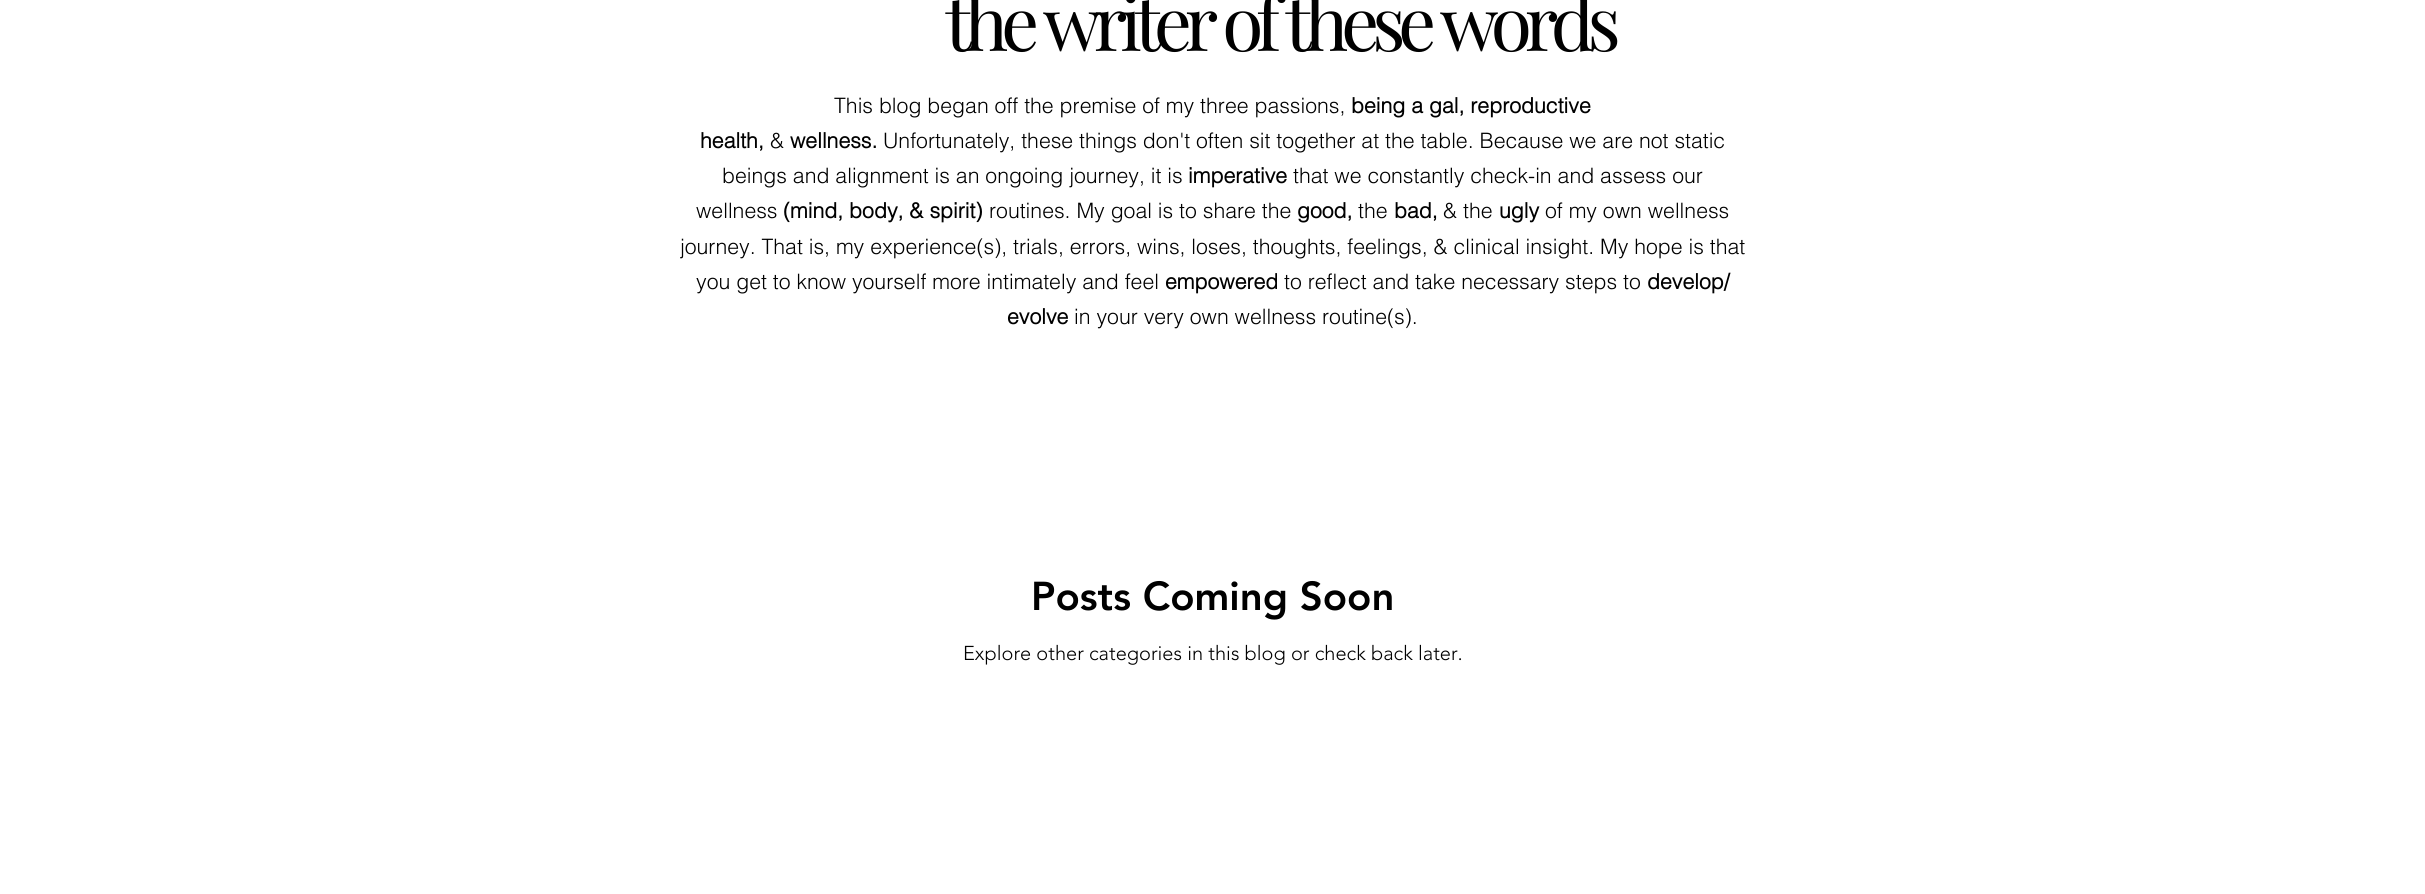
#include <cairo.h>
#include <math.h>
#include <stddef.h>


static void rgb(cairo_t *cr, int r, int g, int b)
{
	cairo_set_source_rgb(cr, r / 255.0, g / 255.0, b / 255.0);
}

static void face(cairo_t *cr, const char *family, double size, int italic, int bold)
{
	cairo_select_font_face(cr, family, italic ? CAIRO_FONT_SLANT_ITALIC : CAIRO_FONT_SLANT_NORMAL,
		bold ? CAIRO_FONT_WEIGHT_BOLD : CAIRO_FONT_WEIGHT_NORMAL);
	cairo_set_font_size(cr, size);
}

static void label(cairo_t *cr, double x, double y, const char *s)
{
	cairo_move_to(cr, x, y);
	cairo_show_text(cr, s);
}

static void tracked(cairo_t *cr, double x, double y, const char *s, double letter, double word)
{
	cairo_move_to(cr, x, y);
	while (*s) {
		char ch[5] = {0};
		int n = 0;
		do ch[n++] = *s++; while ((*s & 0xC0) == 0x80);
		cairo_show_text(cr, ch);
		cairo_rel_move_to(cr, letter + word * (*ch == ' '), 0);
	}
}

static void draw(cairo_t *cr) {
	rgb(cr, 255, 255, 255);
	cairo_paint(cr);
	face(cr, "Playfair Display", 75, 0, 0);
	rgb(cr, 0, 0, 0);
	tracked(cr, 945, 51, "the writer of these words", -7.25, 0);
	face(cr, "helvetica Light", 21.25, 0, 0);
	label(cr, 834, 113, "This blog began off the premise of my three passions,");
	face(cr, "helvetica", 21.25, 0, 1);
	label(cr, 1351, 113, "being a gal, reproductive");
	label(cr, 700, 148, "health,");
	face(cr, "helvetica Light", 21.25, 0, 0);
	label(cr, 770, 148, "&");
	face(cr, "helvetica", 21.25, 0, 1);
	label(cr, 790, 148, "wellness.");
	face(cr, "helvetica Light", 21.25, 0, 0);
	label(cr, 883, 148, "Unfortunately, these things don't often sit together at the table. Because we are not static");
	label(cr, 722, 183, "beings and alignment is an ongoing journey, it is");
	face(cr, "helvetica", 21.25, 0, 1);
	label(cr, 1188, 183, "imperative");
	face(cr, "helvetica Light", 21.25, 0, 0);
	label(cr, 1293, 183, "that we constantly check-in and assess our");
	label(cr, 696, 218, "wellness");
	face(cr, "helvetica", 21.25, 0, 1);
	label(cr, 783, 218, "(mind, body, & spirit)");
	face(cr, "helvetica Light", 21.25, 0, 0);
	label(cr, 989, 218, "routines. My goal is to share the");
	face(cr, "helvetica", 21.25, 0, 1);
	label(cr, 1297, 218, "good,");
	face(cr, "helvetica Light", 21.25, 0, 0);
	label(cr, 1358, 218, "the");
	face(cr, "helvetica", 21.25, 0, 1);
	label(cr, 1394, 218, "bad,");
	face(cr, "helvetica Light", 21.25, 0, 0);
	label(cr, 1443, 218, "& the");
	face(cr, "helvetica", 21.25, 0, 1);
	label(cr, 1499, 218, "ugly");
	face(cr, "helvetica Light", 21.25, 0, 0);
	label(cr, 1545, 218, "of my own wellness");
	label(cr, 680, 254, "journey. That is, my experience(s), trials, errors, wins, loses, thoughts, feelings, & clinical insight. My hope is that");
	label(cr, 696, 289, "you get to know yourself more intimately and feel");
	face(cr, "helvetica", 21.25, 0, 1);
	label(cr, 1165, 289, "empowered");
	face(cr, "helvetica Light", 21.25, 0, 0);
	label(cr, 1284, 289, "to reflect and take necessary steps to");
	face(cr, "helvetica", 21.25, 0, 1);
	label(cr, 1647, 289, "develop/");
	label(cr, 1007, 324, "evolve");
	face(cr, "helvetica Light", 21.25, 0, 0);
	label(cr, 1074, 324, "in your very own wellness routine(s).");
	face(cr, "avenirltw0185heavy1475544 Black", 40, 0, 0);
	label(cr, 1031, 610, "Posts Coming Soon");
	face(cr, "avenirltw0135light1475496 Light", 20, 0, 0);
	label(cr, 963, 660, "Explore other categories in this blog or check back later.");
}

int main(void) {
	cairo_surface_t *surface = cairo_image_surface_create(CAIRO_FORMAT_RGB24, 2425, 894);
	cairo_t *cr = cairo_create(surface);
	cairo_font_options_t *options = cairo_font_options_create();
	cairo_font_options_set_hint_metrics(options, CAIRO_HINT_METRICS_OFF);
	cairo_font_options_set_hint_style(options, CAIRO_HINT_STYLE_NONE);
	cairo_set_font_options(cr, options);
	cairo_set_miter_limit(cr, 4);
	draw(cr);
	cairo_surface_write_to_png(surface, "render.png");
	cairo_font_options_destroy(options);
	cairo_destroy(cr);
	cairo_surface_destroy(surface);
	return 0;
}
